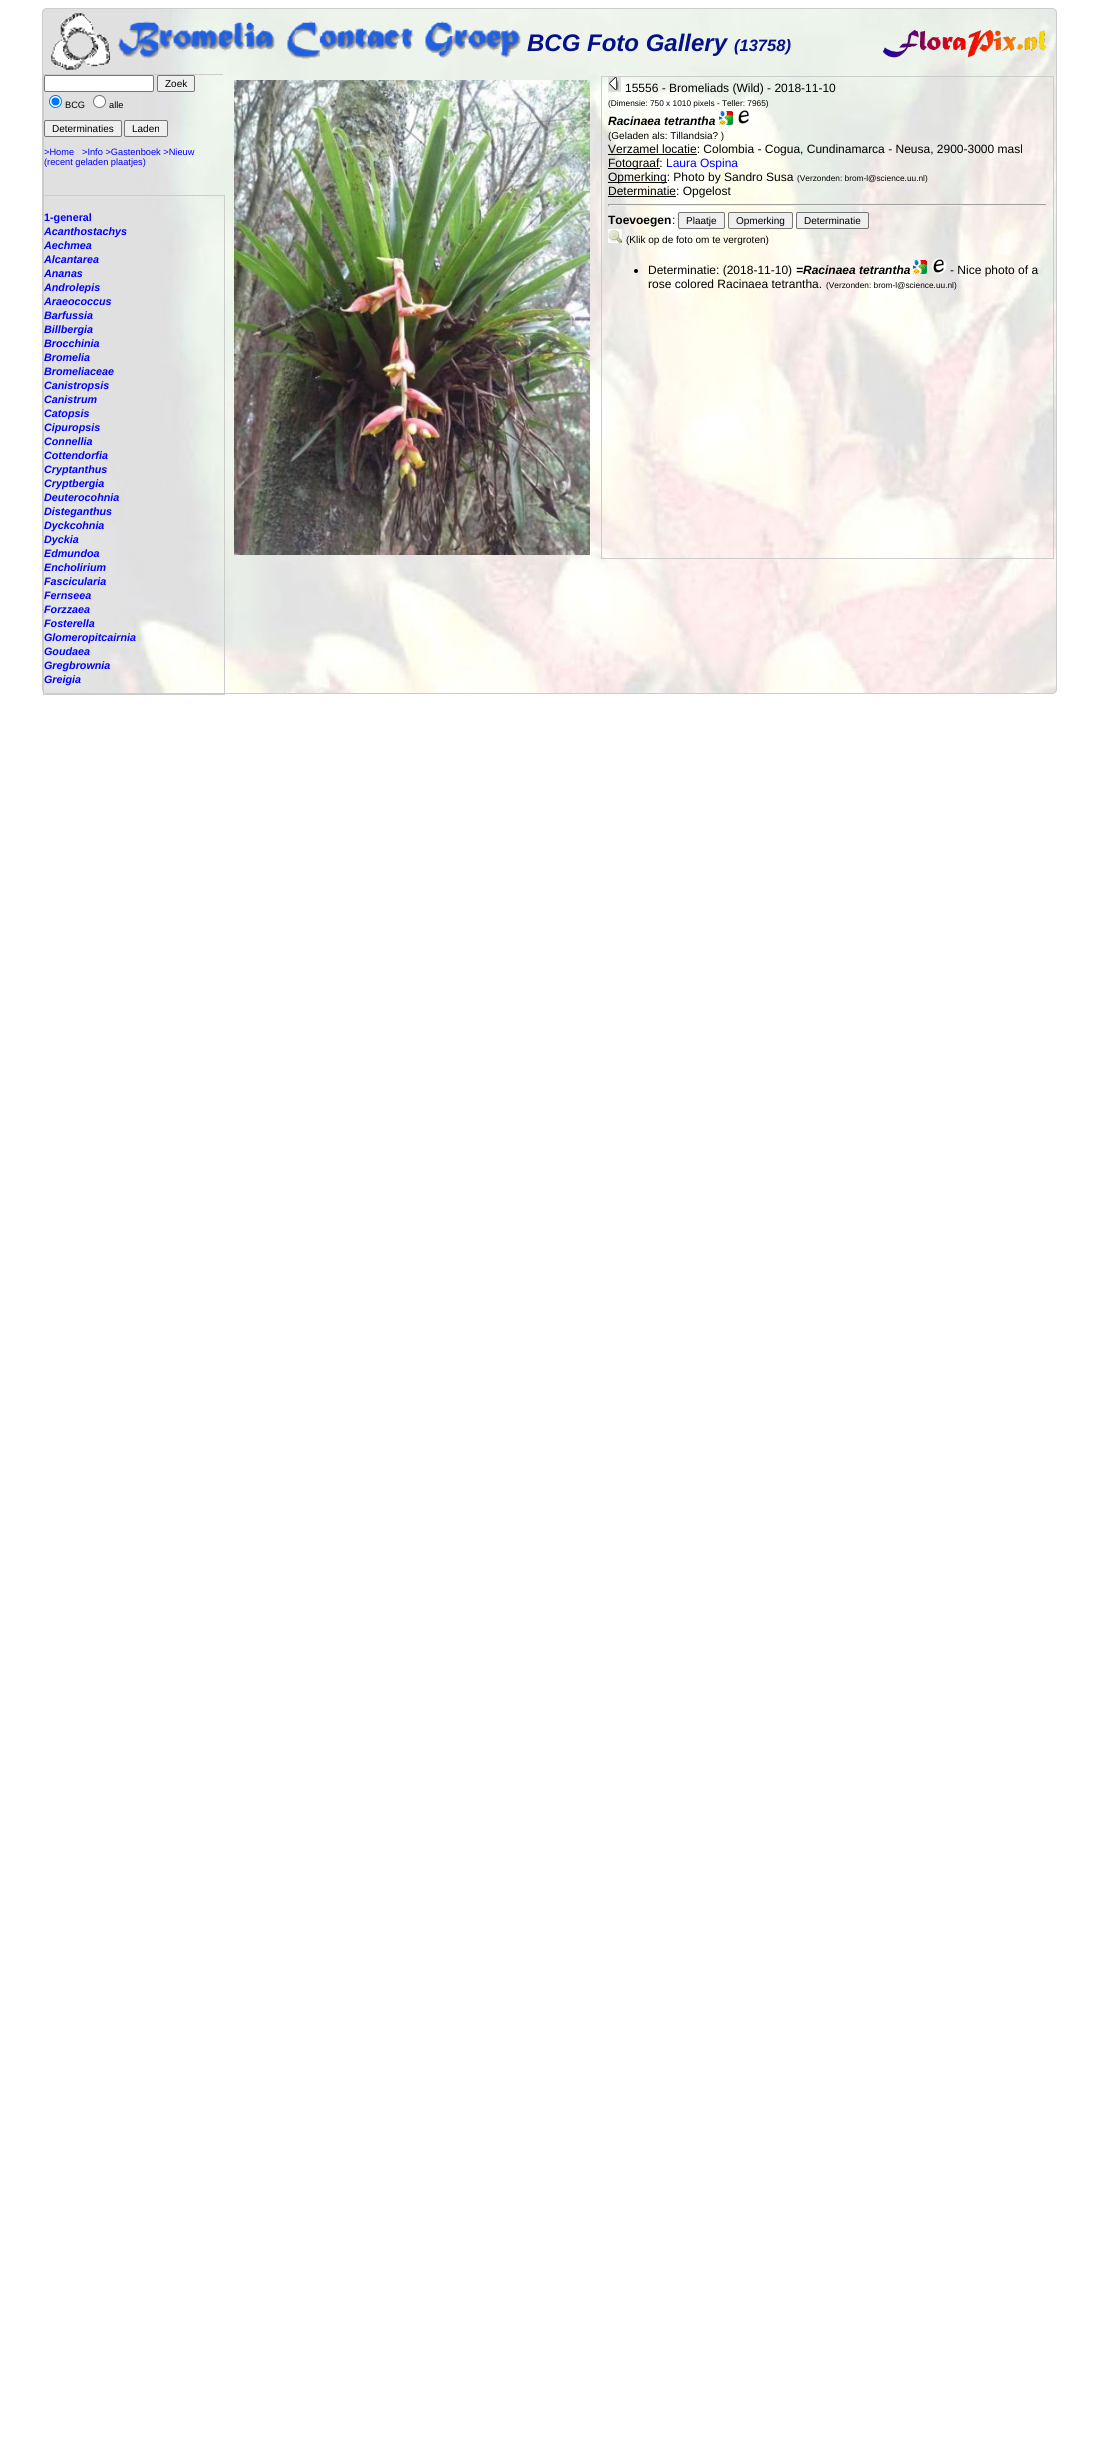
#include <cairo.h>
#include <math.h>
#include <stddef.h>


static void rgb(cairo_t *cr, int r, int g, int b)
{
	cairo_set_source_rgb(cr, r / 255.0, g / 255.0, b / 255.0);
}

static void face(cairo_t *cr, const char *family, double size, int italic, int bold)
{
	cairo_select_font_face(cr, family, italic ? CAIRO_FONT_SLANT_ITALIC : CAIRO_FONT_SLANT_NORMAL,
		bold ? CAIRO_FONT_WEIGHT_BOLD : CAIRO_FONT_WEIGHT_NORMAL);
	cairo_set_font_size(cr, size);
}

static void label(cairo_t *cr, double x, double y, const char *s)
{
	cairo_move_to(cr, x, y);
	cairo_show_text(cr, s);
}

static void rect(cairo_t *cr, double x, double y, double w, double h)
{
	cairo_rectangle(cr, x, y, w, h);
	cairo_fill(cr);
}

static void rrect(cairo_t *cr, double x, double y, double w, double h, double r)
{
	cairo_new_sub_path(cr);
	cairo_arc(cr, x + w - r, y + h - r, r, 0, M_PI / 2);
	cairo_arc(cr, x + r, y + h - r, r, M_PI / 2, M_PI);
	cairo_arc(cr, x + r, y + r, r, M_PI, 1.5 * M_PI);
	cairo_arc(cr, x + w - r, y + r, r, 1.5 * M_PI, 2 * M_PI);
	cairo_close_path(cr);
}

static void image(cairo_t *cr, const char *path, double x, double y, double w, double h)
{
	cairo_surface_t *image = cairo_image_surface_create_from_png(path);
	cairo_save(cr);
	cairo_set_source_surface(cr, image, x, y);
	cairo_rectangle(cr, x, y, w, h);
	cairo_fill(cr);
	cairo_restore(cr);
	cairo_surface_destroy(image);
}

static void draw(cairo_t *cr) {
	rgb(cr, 255, 255, 255);
	cairo_paint(cr);
	image(cr, "image0.png", 42, 8, 1015, 686);
	rrect(cr, 42.5, 8.5, 1014, 685, 4.5);
	rgb(cr, 204, 204, 204);
	cairo_set_line_width(cr, 1);
	cairo_stroke(cr);
	image(cr, "image1.png", 51, 13, 470, 57);
	face(cr, "Liberation Sans", 24, 1, 1);
	rgb(cr, 4, 17, 136);
	label(cr, 527, 51, "BCG Foto Gallery");
	face(cr, "Liberation Sans", 16.5, 1, 1);
	label(cr, 734, 51, "(13758)");
	image(cr, "image2.png", 882, 29, 165, 29);
	cairo_save(cr);
	cairo_rectangle(cr, 43, 74, 180, 619);
	cairo_clip(cr);
	cairo_rectangle(cr, 43.5, 74.5, 181, 121);
	rgb(cr, 204, 204, 204);
	cairo_stroke(cr);
	cairo_restore(cr);
	rgb(cr, 255, 255, 255);
	rrect(cr, 44.5, 75.5, 109, 16, 1.5);
	cairo_fill_preserve(cr);
	rgb(cr, 118, 118, 118);
	cairo_stroke(cr);
	rgb(cr, 239, 239, 239);
	rrect(cr, 157.5, 75.5, 37, 16, 1.5);
	cairo_fill_preserve(cr);
	rgb(cr, 118, 118, 118);
	cairo_stroke(cr);
	face(cr, "Liberation Sans", 10, 0, 0);
	rgb(cr, 0, 0, 0);
	label(cr, 165, 87, "Zoek");
	rgb(cr, 255, 255, 255);
	cairo_new_path(cr);
	cairo_arc(cr, 55.5, 101.5, 6, 0, 2 * M_PI);
	cairo_fill_preserve(cr);
	rgb(cr, 0, 117, 255);
	cairo_stroke(cr);
	cairo_arc(cr, 55.5, 101.5, 4, 0, 2 * M_PI);
	cairo_fill(cr);
	face(cr, "Liberation Sans", 9.25, 0, 0);
	rgb(cr, 0, 0, 0);
	label(cr, 65, 108, "BCG");
	rgb(cr, 255, 255, 255);
	cairo_new_path(cr);
	cairo_arc(cr, 99.5, 101.5, 6, 0, 2 * M_PI);
	cairo_fill_preserve(cr);
	rgb(cr, 118, 118, 118);
	cairo_stroke(cr);
	rgb(cr, 0, 0, 0);
	label(cr, 109, 108, "alle");
	rgb(cr, 239, 239, 239);
	rrect(cr, 44.5, 120.5, 77, 16, 1.5);
	cairo_fill_preserve(cr);
	rgb(cr, 118, 118, 118);
	cairo_stroke(cr);
	face(cr, "Liberation Sans", 10, 0, 0);
	rgb(cr, 0, 0, 0);
	label(cr, 52, 132, "Determinaties");
	rgb(cr, 239, 239, 239);
	rrect(cr, 124.5, 120.5, 43, 16, 1.5);
	cairo_fill_preserve(cr);
	rgb(cr, 118, 118, 118);
	cairo_stroke(cr);
	rgb(cr, 0, 0, 0);
	label(cr, 132, 132, "Laden");
	face(cr, "Liberation Sans", 9.25, 0, 0);
	rgb(cr, 0, 0, 255);
	label(cr, 44, 155, ">Home");
	label(cr, 82, 155, ">Info >Gastenboek >Nieuw");
	label(cr, 44, 165, "(recent geladen plaatjes)");
	cairo_rectangle(cr, 43.5, 195.5, 181, 499);
	rgb(cr, 204, 204, 204);
	cairo_stroke(cr);
	face(cr, "Liberation Sans", 10.75, 0, 1);
	rgb(cr, 0, 0, 255);
	label(cr, 44, 221, "1-general");
	face(cr, "Liberation Sans", 10.75, 1, 1);
	label(cr, 44, 235, "Acanthostachys");
	label(cr, 44, 249, "Aechmea");
	label(cr, 44, 263, "Alcantarea");
	label(cr, 44, 277, "Ananas");
	label(cr, 44, 291, "Androlepis");
	label(cr, 44, 305, "Araeococcus");
	label(cr, 44, 319, "Barfussia");
	label(cr, 44, 333, "Billbergia");
	label(cr, 44, 347, "Brocchinia");
	label(cr, 44, 361, "Bromelia");
	label(cr, 44, 375, "Bromeliaceae");
	label(cr, 44, 389, "Canistropsis");
	label(cr, 44, 403, "Canistrum");
	label(cr, 44, 417, "Catopsis");
	label(cr, 44, 431, "Cipuropsis");
	label(cr, 44, 445, "Connellia");
	label(cr, 44, 459, "Cottendorfia");
	label(cr, 44, 473, "Cryptanthus");
	label(cr, 44, 487, "Cryptbergia");
	label(cr, 44, 501, "Deuterocohnia");
	label(cr, 44, 515, "Disteganthus");
	label(cr, 44, 529, "Dyckcohnia");
	label(cr, 44, 543, "Dyckia");
	label(cr, 44, 557, "Edmundoa");
	label(cr, 44, 571, "Encholirium");
	label(cr, 44, 585, "Fascicularia");
	label(cr, 44, 599, "Fernseea");
	label(cr, 44, 613, "Forzzaea");
	label(cr, 44, 627, "Fosterella");
	label(cr, 44, 641, "Glomeropitcairnia");
	label(cr, 44, 655, "Goudaea");
	label(cr, 44, 669, "Gregbrownia");
	label(cr, 44, 683, "Greigia");
	image(cr, "image3.png", 234, 80, 356, 475);
	cairo_rectangle(cr, 601.5, 76.5, 452, 482);
	rgb(cr, 204, 204, 204);
	cairo_stroke(cr);
	image(cr, "image4.png", 608, 77, 13, 15);
	face(cr, "Liberation Sans", 12, 0, 0);
	rgb(cr, 0, 0, 0);
	label(cr, 625, 92, "15556 - Bromeliads (Wild) - 2018-11-10");
	face(cr, "Liberation Sans", 8.3, 0, 0);
	label(cr, 608, 106, "(Dimensie: 750 x 1010 pixels - Teller: 7965)");
	face(cr, "Liberation Sans", 12, 1, 1);
	label(cr, 608, 125, "Racinaea tetrantha");
	image(cr, "image5.png", 719, 111, 14, 14);
	image(cr, "image6.png", 737, 110, 12, 15);
	face(cr, "Liberation Sans", 10, 0, 0);
	label(cr, 608, 139, "(Geladen als: Tillandsia? )");
	rect(cr, 608, 154, 89, 1);
	face(cr, "Liberation Sans", 12, 0, 0);
	label(cr, 608, 153, "Verzamel locatie: Colombia - Cogua, Cundinamarca - Neusa, 2900-3000 masl");
	rect(cr, 608, 168, 52, 1);
	label(cr, 608, 167, "Fotograaf:");
	rgb(cr, 0, 0, 255);
	label(cr, 666, 167, "Laura Ospina");
	rgb(cr, 0, 0, 0);
	rect(cr, 608, 182, 59, 1);
	label(cr, 608, 181, "Opmerking: Photo by Sandro Susa");
	face(cr, "Liberation Sans", 8.3, 0, 0);
	label(cr, 797, 181, "(Verzonden: brom-l@science.uu.nl)");
	rect(cr, 608, 196, 68, 1);
	face(cr, "Liberation Sans", 12, 0, 0);
	label(cr, 608, 195, "Determinatie: Opgelost");
	rgb(cr, 159, 159, 159);
	rect(cr, 608, 204, 439, 1);
	rgb(cr, 238, 238, 238);
	rect(cr, 1046, 204, 1, 2);
	rect(cr, 608, 205, 439, 1);
	rgb(cr, 159, 159, 159);
	rect(cr, 608, 204, 1, 2);
	face(cr, "Liberation Sans", 12, 0, 1);
	rgb(cr, 0, 0, 0);
	label(cr, 608, 224, "Toevoegen");
	face(cr, "Liberation Sans", 12, 0, 0);
	label(cr, 672, 224, ":");
	rgb(cr, 239, 239, 239);
	rrect(cr, 678.5, 212.5, 46, 16, 1.5);
	cairo_fill_preserve(cr);
	rgb(cr, 118, 118, 118);
	cairo_stroke(cr);
	face(cr, "Liberation Sans", 10, 0, 0);
	rgb(cr, 0, 0, 0);
	label(cr, 686, 224, "Plaatje");
	rgb(cr, 239, 239, 239);
	rrect(cr, 728.5, 212.5, 64, 16, 1.5);
	cairo_fill_preserve(cr);
	rgb(cr, 118, 118, 118);
	cairo_stroke(cr);
	rgb(cr, 0, 0, 0);
	label(cr, 736, 224, "Opmerking");
	rgb(cr, 239, 239, 239);
	rrect(cr, 796.5, 212.5, 72, 16, 1.5);
	cairo_fill_preserve(cr);
	rgb(cr, 118, 118, 118);
	cairo_stroke(cr);
	rgb(cr, 0, 0, 0);
	label(cr, 804, 224, "Determinatie");
	image(cr, "image7.png", 608, 229, 14, 14);
	label(cr, 626, 243, "(Klik op de foto om te vergroten)");
	cairo_new_path(cr);
	cairo_arc(cr, 636, 271, 2, 0, 2 * M_PI);
	cairo_fill(cr);
	face(cr, "Liberation Sans", 12, 0, 0);
	label(cr, 648, 274, "Determinatie: (2018-11-10)");
	face(cr, "Liberation Sans", 12, 1, 1);
	label(cr, 796, 274, "=Racinaea tetrantha");
	image(cr, "image5.png", 913, 260, 14, 14);
	image(cr, "image8.png", 931, 258, 16, 16);
	face(cr, "Liberation Sans", 12, 0, 0);
	label(cr, 950, 274, "- Nice photo of a");
	label(cr, 648, 288, "rose colored Racinaea tetrantha.");
	face(cr, "Liberation Sans", 8.3, 0, 0);
	label(cr, 826, 288, "(Verzonden: brom-l@science.uu.nl)");
}

int main(void) {
	cairo_surface_t *surface = cairo_image_surface_create(CAIRO_FORMAT_RGB24, 1099, 2437);
	cairo_t *cr = cairo_create(surface);
	cairo_font_options_t *options = cairo_font_options_create();
	cairo_font_options_set_hint_metrics(options, CAIRO_HINT_METRICS_OFF);
	cairo_font_options_set_hint_style(options, CAIRO_HINT_STYLE_NONE);
	cairo_set_font_options(cr, options);
	cairo_set_miter_limit(cr, 4);
	draw(cr);
	cairo_surface_write_to_png(surface, "render.png");
	cairo_font_options_destroy(options);
	cairo_destroy(cr);
	cairo_surface_destroy(surface);
	return 0;
}
